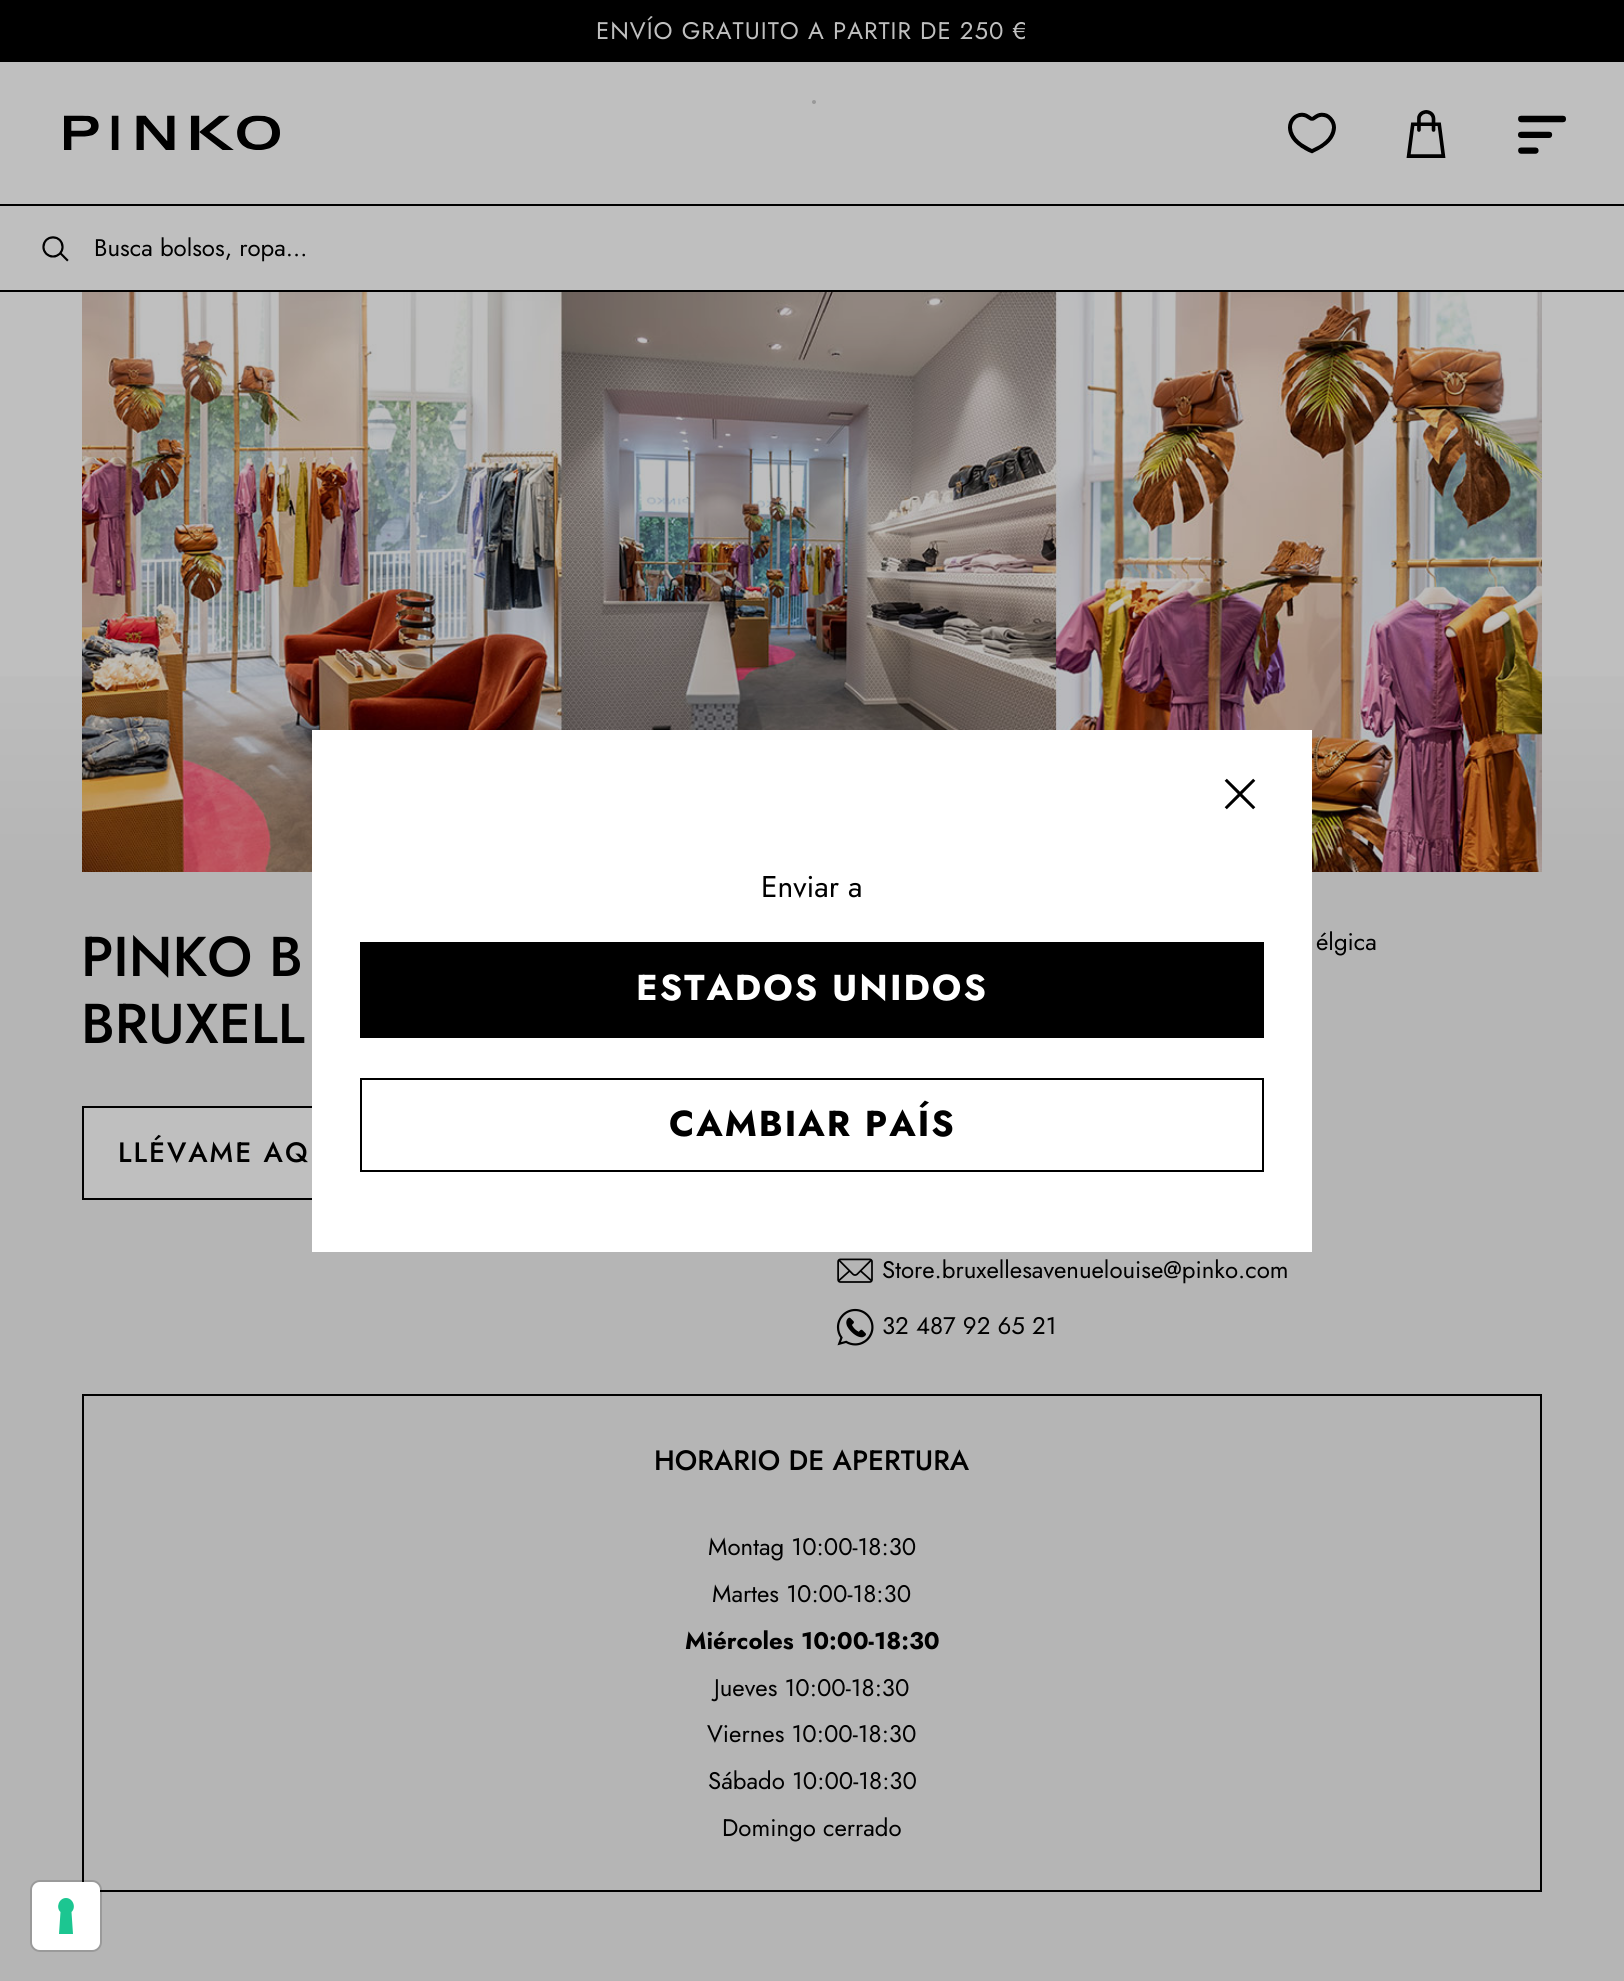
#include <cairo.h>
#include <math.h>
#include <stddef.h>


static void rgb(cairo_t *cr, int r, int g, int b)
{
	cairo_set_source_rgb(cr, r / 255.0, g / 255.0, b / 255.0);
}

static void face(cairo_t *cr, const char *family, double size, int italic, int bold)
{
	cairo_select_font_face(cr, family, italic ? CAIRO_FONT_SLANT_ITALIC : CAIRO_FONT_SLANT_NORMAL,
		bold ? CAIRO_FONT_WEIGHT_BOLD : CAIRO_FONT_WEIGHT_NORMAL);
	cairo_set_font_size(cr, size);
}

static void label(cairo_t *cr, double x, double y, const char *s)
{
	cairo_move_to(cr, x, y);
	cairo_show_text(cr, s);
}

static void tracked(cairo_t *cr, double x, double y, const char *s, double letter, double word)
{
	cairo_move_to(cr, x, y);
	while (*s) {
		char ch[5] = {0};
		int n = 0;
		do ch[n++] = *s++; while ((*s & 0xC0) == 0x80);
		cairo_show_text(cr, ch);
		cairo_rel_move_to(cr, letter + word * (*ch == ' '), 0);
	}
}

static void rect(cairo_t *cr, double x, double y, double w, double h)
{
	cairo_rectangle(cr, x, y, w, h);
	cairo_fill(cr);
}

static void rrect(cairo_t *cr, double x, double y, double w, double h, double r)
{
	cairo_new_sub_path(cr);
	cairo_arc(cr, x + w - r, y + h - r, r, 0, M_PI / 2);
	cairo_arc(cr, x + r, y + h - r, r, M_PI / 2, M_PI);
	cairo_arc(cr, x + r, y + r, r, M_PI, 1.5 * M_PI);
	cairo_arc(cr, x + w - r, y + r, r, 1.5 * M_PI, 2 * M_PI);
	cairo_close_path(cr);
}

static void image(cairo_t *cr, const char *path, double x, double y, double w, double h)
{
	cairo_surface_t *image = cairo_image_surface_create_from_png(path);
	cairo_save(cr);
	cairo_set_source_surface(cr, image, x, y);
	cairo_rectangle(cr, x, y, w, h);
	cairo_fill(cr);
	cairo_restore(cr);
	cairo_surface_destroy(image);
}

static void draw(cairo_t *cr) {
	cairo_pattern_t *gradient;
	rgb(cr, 191, 191, 191);
	cairo_paint(cr);
	rgb(cr, 0, 0, 0);
	rect(cr, 0, 0, 1624, 62);
	face(cr, "Jost", 24, 0, 0);
	rgb(cr, 191, 191, 191);
	tracked(cr, 596, 39, "ENVÍO GRATUITO A PARTIR DE 250 €", 1, 0);
	image(cr, "image0.png", 64, 115, 216, 35);
	rgb(cr, 153, 153, 153);
	cairo_arc(cr, 814, 102, 2, 0, 2 * M_PI);
	cairo_fill(cr);
	image(cr, "image1.png", 1406, 110, 40, 48);
	image(cr, "image2.png", 1288, 112, 48, 42);
	image(cr, "image3.png", 1518, 115, 48, 39);
	rgb(cr, 0, 0, 0);
	rect(cr, 0, 204, 1624, 2);
	rect(cr, 0, 290, 1624, 2);
	image(cr, "image4.png", 42, 236, 27, 26);
	label(cr, 94, 256, "Busca bolsos, ropa…");
	gradient = cairo_pattern_create_linear(812, 292, 812, 872);
	cairo_pattern_add_color_stop_rgba(gradient, 0.55, 0.749, 0.749, 0.749, 1);
	cairo_pattern_add_color_stop_rgba(gradient, 1, 0.71, 0.71, 0.71, 1);
	cairo_set_source(cr, gradient);
	cairo_pattern_destroy(gradient);
	rect(cr, 0, 676, 1624, 196);
	image(cr, "image6.png", 82, 292, 1460, 580);
	rgb(cr, 181, 181, 181);
	rect(cr, 0, 872, 1624, 1109);
	rgb(cr, 191, 191, 191);
	rect(cr, 84, 1108, 228, 90);
	cairo_rectangle(cr, 83, 1107, 294, 92);
	rgb(cr, 0, 0, 0);
	cairo_stroke(cr);
	rgb(cr, 255, 255, 255);
	rect(cr, 312, 730, 1000, 522);
	image(cr, "image5.png", 1224, 778, 32, 32);
	face(cr, "Jost", 30, 0, 0);
	rgb(cr, 0, 0, 0);
	label(cr, 761, 897, "Enviar a");
	rect(cr, 360, 942, 904, 96);
	face(cr, "Jost", 36, 0, 1);
	rgb(cr, 255, 255, 255);
	tracked(cr, 636, 1000, "ESTADOS UNIDOS", 2, 0);
	cairo_rectangle(cr, 361, 1079, 902, 92);
	rgb(cr, 0, 0, 0);
	cairo_stroke(cr);
	tracked(cr, 669, 1136, "CAMBIAR PAÍS", 2, 0);
	face(cr, "Jost Medium", 56, 0, 0);
	label(cr, 81, 976, "PINKO B");
	label(cr, 81, 1043, "BRUXELL");
	face(cr, "Jost", 24, 0, 0);
	label(cr, 1316, 950, "élgica");
	face(cr, "Jost Medium", 28, 0, 0);
	tracked(cr, 118, 1162, "LLÉVAME AQ", 2, 0);
	image(cr, "image7.png", 837, 1258, 36, 25);
	face(cr, "Jost", 24, 0, 0);
	label(cr, 882, 1278, "Store.bruxellesavenuelouise@pinko.com");
	image(cr, "image8.png", 836, 1308, 38, 38);
	label(cr, 882, 1334, "32 487 92 65 21");
	cairo_rectangle(cr, 83, 1395, 1458, 496);
	cairo_stroke(cr);
	face(cr, "Jost Medium", 28, 0, 0);
	label(cr, 654, 1470, "HORARIO DE APERTURA");
	face(cr, "Jost", 24, 0, 0);
	label(cr, 708, 1555, "Montag 10:00-18:30");
	label(cr, 712, 1602, "Martes 10:00-18:30");
	face(cr, "Jost", 24, 0, 1);
	label(cr, 685, 1649, "Miércoles 10:00-18:30");
	face(cr, "Jost", 24, 0, 0);
	label(cr, 714, 1696, "Jueves 10:00-18:30");
	label(cr, 707, 1742, "Viernes 10:00-18:30");
	label(cr, 708, 1789, "Sábado 10:00-18:30");
	label(cr, 722, 1836, "Domingo cerrado");
	rrect(cr, 31, 1881, 70, 70, 9);
	cairo_set_source_rgba(cr, 0, 0, 0, 0.15);
	cairo_stroke(cr);
	rgb(cr, 255, 255, 255);
	rrect(cr, 32, 1882, 68, 68, 8);
	cairo_fill(cr);
	rgb(cr, 28, 198, 145);
	cairo_set_fill_rule(cr, CAIRO_FILL_RULE_EVEN_ODD);
	cairo_new_path(cr);
	cairo_move_to(cr, 66, 1898);
	cairo_curve_to(cr, 73, 1898, 76.5, 1907.5, 71.5, 1912);
	cairo_line_to(cr, 73, 1934);
	cairo_line_to(cr, 59, 1934);
	cairo_line_to(cr, 60.5, 1912);
	cairo_curve_to(cr, 55.5, 1907.5, 59, 1898, 66, 1898);
	cairo_close_path(cr);
	cairo_fill(cr);
}

int main(void) {
	cairo_surface_t *surface = cairo_image_surface_create(CAIRO_FORMAT_RGB24, 1624, 1981);
	cairo_t *cr = cairo_create(surface);
	cairo_font_options_t *options = cairo_font_options_create();
	cairo_font_options_set_hint_metrics(options, CAIRO_HINT_METRICS_OFF);
	cairo_font_options_set_hint_style(options, CAIRO_HINT_STYLE_NONE);
	cairo_set_font_options(cr, options);
	cairo_set_miter_limit(cr, 4);
	draw(cr);
	cairo_surface_write_to_png(surface, "render.png");
	cairo_font_options_destroy(options);
	cairo_destroy(cr);
	cairo_surface_destroy(surface);
	return 0;
}
